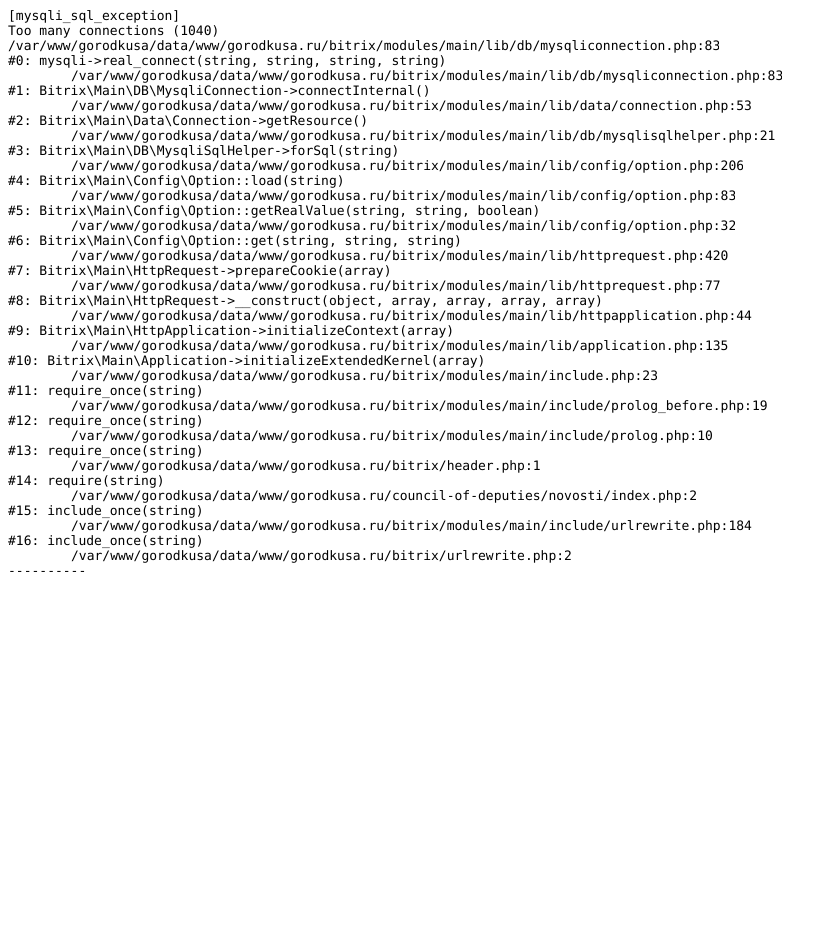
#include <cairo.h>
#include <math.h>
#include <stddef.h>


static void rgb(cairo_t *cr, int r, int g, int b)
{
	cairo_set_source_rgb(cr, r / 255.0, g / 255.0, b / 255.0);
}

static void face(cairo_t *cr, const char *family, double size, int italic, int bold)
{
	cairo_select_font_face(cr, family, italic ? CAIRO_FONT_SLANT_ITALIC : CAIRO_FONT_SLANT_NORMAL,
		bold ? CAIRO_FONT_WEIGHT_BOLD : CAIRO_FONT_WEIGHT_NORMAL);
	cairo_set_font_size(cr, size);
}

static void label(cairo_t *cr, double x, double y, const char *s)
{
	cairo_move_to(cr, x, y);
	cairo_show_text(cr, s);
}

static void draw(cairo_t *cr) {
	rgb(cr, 255, 255, 255);
	cairo_paint(cr);
	face(cr, "DejaVu Sans Mono", 13, 0, 0);
	rgb(cr, 0, 0, 0);
	label(cr, 8, 20, "[mysqli_sql_exception]");
	label(cr, 8, 35, "Too many connections (1040)");
	label(cr, 8, 50, "/var/www/gorodkusa/data/www/gorodkusa.ru/bitrix/modules/main/lib/db/mysqliconnection.php:83");
	label(cr, 8, 65, "#0: mysqli->real_connect(string, string, string, string)");
	label(cr, 71, 80, "/var/www/gorodkusa/data/www/gorodkusa.ru/bitrix/modules/main/lib/db/mysqliconnection.php:83");
	label(cr, 8, 95, "#1: Bitrix\\Main\\DB\\MysqliConnection->connectInternal()");
	label(cr, 71, 110, "/var/www/gorodkusa/data/www/gorodkusa.ru/bitrix/modules/main/lib/data/connection.php:53");
	label(cr, 8, 125, "#2: Bitrix\\Main\\Data\\Connection->getResource()");
	label(cr, 71, 140, "/var/www/gorodkusa/data/www/gorodkusa.ru/bitrix/modules/main/lib/db/mysqlisqlhelper.php:21");
	label(cr, 8, 155, "#3: Bitrix\\Main\\DB\\MysqliSqlHelper->forSql(string)");
	label(cr, 71, 170, "/var/www/gorodkusa/data/www/gorodkusa.ru/bitrix/modules/main/lib/config/option.php:206");
	label(cr, 8, 185, "#4: Bitrix\\Main\\Config\\Option::load(string)");
	label(cr, 71, 200, "/var/www/gorodkusa/data/www/gorodkusa.ru/bitrix/modules/main/lib/config/option.php:83");
	label(cr, 8, 215, "#5: Bitrix\\Main\\Config\\Option::getRealValue(string, string, boolean)");
	label(cr, 71, 230, "/var/www/gorodkusa/data/www/gorodkusa.ru/bitrix/modules/main/lib/config/option.php:32");
	label(cr, 8, 245, "#6: Bitrix\\Main\\Config\\Option::get(string, string, string)");
	label(cr, 71, 260, "/var/www/gorodkusa/data/www/gorodkusa.ru/bitrix/modules/main/lib/httprequest.php:420");
	label(cr, 8, 275, "#7: Bitrix\\Main\\HttpRequest->prepareCookie(array)");
	label(cr, 71, 290, "/var/www/gorodkusa/data/www/gorodkusa.ru/bitrix/modules/main/lib/httprequest.php:77");
	label(cr, 8, 305, "#8: Bitrix\\Main\\HttpRequest->__construct(object, array, array, array, array)");
	label(cr, 71, 320, "/var/www/gorodkusa/data/www/gorodkusa.ru/bitrix/modules/main/lib/httpapplication.php:44");
	label(cr, 8, 335, "#9: Bitrix\\Main\\HttpApplication->initializeContext(array)");
	label(cr, 71, 350, "/var/www/gorodkusa/data/www/gorodkusa.ru/bitrix/modules/main/lib/application.php:135");
	label(cr, 8, 365, "#10: Bitrix\\Main\\Application->initializeExtendedKernel(array)");
	label(cr, 71, 380, "/var/www/gorodkusa/data/www/gorodkusa.ru/bitrix/modules/main/include.php:23");
	label(cr, 8, 395, "#11: require_once(string)");
	label(cr, 71, 410, "/var/www/gorodkusa/data/www/gorodkusa.ru/bitrix/modules/main/include/prolog_before.php:19");
	label(cr, 8, 425, "#12: require_once(string)");
	label(cr, 71, 440, "/var/www/gorodkusa/data/www/gorodkusa.ru/bitrix/modules/main/include/prolog.php:10");
	label(cr, 8, 455, "#13: require_once(string)");
	label(cr, 71, 470, "/var/www/gorodkusa/data/www/gorodkusa.ru/bitrix/header.php:1");
	label(cr, 8, 485, "#14: require(string)");
	label(cr, 71, 500, "/var/www/gorodkusa/data/www/gorodkusa.ru/council-of-deputies/novosti/index.php:2");
	label(cr, 8, 515, "#15: include_once(string)");
	label(cr, 71, 530, "/var/www/gorodkusa/data/www/gorodkusa.ru/bitrix/modules/main/include/urlrewrite.php:184");
	label(cr, 8, 545, "#16: include_once(string)");
	label(cr, 71, 560, "/var/www/gorodkusa/data/www/gorodkusa.ru/bitrix/urlrewrite.php:2");
	label(cr, 8, 575, "----------");
}

int main(void) {
	cairo_surface_t *surface = cairo_image_surface_create(CAIRO_FORMAT_RGB24, 839, 944);
	cairo_t *cr = cairo_create(surface);
	cairo_font_options_t *options = cairo_font_options_create();
	cairo_font_options_set_hint_metrics(options, CAIRO_HINT_METRICS_OFF);
	cairo_font_options_set_hint_style(options, CAIRO_HINT_STYLE_NONE);
	cairo_set_font_options(cr, options);
	cairo_set_miter_limit(cr, 4);
	draw(cr);
	cairo_surface_write_to_png(surface, "render.png");
	cairo_font_options_destroy(options);
	cairo_destroy(cr);
	cairo_surface_destroy(surface);
	return 0;
}
